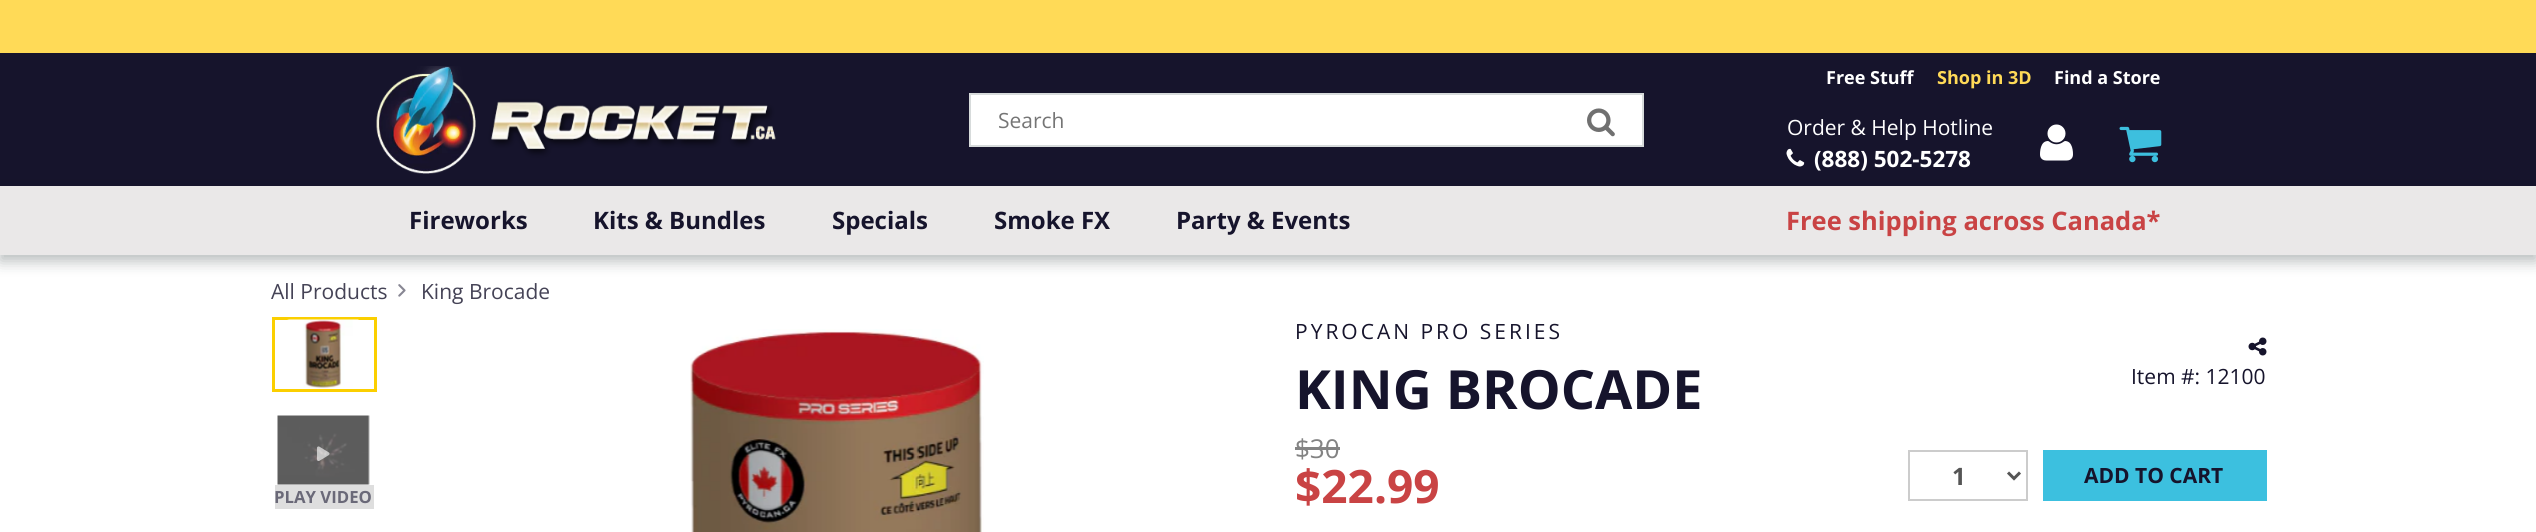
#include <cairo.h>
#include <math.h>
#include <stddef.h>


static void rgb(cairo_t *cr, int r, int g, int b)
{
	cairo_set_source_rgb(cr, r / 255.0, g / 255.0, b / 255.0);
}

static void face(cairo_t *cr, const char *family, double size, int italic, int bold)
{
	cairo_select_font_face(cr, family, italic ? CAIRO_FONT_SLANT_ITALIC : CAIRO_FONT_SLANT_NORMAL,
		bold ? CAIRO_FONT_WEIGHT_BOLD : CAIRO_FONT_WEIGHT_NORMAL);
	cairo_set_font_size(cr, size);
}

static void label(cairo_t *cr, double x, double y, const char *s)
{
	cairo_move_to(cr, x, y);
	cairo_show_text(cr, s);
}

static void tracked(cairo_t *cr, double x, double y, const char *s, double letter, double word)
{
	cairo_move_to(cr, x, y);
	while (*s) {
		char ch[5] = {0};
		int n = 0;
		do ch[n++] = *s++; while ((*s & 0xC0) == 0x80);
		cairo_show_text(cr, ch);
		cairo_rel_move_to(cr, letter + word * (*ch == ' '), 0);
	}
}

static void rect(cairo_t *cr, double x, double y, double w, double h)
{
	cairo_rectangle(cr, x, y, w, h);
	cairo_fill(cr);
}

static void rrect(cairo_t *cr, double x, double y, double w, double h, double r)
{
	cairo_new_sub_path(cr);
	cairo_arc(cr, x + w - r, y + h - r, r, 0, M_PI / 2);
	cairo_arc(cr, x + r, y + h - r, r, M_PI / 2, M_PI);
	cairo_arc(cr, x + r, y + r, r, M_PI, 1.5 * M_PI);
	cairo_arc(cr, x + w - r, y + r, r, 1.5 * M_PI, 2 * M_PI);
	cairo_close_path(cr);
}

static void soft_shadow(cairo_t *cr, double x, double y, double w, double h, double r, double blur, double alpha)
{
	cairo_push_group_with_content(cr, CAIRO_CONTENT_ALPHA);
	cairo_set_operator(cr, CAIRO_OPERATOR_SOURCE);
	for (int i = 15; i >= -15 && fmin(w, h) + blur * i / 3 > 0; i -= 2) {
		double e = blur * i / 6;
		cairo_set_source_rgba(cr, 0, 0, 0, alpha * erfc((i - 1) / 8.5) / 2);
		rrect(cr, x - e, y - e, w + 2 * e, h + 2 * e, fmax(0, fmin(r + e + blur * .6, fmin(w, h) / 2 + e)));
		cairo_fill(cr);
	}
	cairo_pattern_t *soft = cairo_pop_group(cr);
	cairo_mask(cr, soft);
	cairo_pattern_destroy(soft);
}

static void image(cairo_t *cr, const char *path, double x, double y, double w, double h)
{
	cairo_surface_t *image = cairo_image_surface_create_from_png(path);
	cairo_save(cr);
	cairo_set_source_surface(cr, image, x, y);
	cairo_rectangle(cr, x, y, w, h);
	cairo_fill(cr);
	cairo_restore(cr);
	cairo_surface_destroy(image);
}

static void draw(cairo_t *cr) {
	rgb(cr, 255, 255, 255);
	cairo_paint(cr);
	rgb(cr, 255, 218, 87);
	rect(cr, 0, 0, 2536, 53);
	rgb(cr, 22, 20, 44);
	rect(cr, 0, 53, 2536, 133);
	image(cr, "image0.png", 376, 66, 400, 108);
	rgb(cr, 255, 255, 255);
	cairo_rectangle(cr, 970, 94, 673, 52);
	cairo_fill_preserve(cr);
	rgb(cr, 215, 219, 219);
	cairo_stroke(cr);
	face(cr, "Open Sans", 21, 0, 0);
	rgb(cr, 117, 117, 117);
	label(cr, 998, 128, "Search");
	image(cr, "image1.png", 1587, 108, 28, 29);
	face(cr, "Open Sans", 18, 0, 1);
	rgb(cr, 255, 255, 255);
	label(cr, 1826, 84, "Free Stuff");
	rgb(cr, 255, 218, 87);
	label(cr, 1937, 84, "Shop in 3D");
	rgb(cr, 255, 255, 255);
	label(cr, 2054, 84, "Find a Store");
	face(cr, "Open Sans", 21, 0, 0);
	label(cr, 1787, 135, "Order & Help Hotline");
	image(cr, "image2.png", 1786, 148, 19, 19);
	face(cr, "Open Sans", 22.5, 0, 1);
	label(cr, 1814, 167, "(888) 502-5278");
	image(cr, "image3.png", 2040, 124, 33, 37);
	image(cr, "image4.png", 2119, 126, 43, 37);
	image(cr, "image5.png", 398, 284, 8, 13);
	rgb(cr, 11, 25, 28);
	soft_shadow(cr, 0, 192, 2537, 69, 0, 7.5, 0.3);
	rgb(cr, 234, 232, 232);
	rect(cr, 0, 186, 2536, 69);
	face(cr, "Open Sans", 24, 0, 1);
	rgb(cr, 22, 20, 44);
	label(cr, 409, 229, "Fireworks");
	label(cr, 593, 229, "Kits & Bundles");
	label(cr, 832, 229, "Specials");
	label(cr, 994, 229, "Smoke FX");
	label(cr, 1176, 229, "Party & Events");
	face(cr, "Open Sans", 25.5, 0, 1);
	rgb(cr, 201, 67, 68);
	label(cr, 1786, 230, "Free shipping across Canada*");
	face(cr, "Open Sans", 21, 0, 0);
	rgb(cr, 69, 67, 86);
	label(cr, 271, 299, "All Products");
	label(cr, 421, 299, "King Brocade");
	cairo_rectangle(cr, 273.5, 318.5, 102, 72);
	rgb(cr, 251, 207, 0);
	cairo_set_line_width(cr, 3);
	cairo_stroke(cr);
	image(cr, "image6.png", 287, 319, 72, 70);
	image(cr, "image7.png", 277, 415, 93, 70);
	image(cr, "image8.png", 316, 446, 14, 15);
	rgb(cr, 222, 222, 222);
	rect(cr, 275, 485, 99, 24);
	face(cr, "Open Sans", 16.75, 0, 1);
	rgb(cr, 106, 105, 120);
	label(cr, 274, 503, "PLAY VIDEO");
	image(cr, "image9.png", 690, 329, 294, 203);
	face(cr, "Open Sans", 21, 0, 0);
	rgb(cr, 22, 20, 44);
	tracked(cr, 1295, 339, "PYROCAN PRO SERIES", 3, 0);
	face(cr, "Open Sans", 54, 0, 1);
	label(cr, 1295, 409, "KING BROCADE");
	image(cr, "image10.png", 2248, 337, 19, 19);
	face(cr, "Open Sans", 21, 0, 0);
	label(cr, 2131, 384, "Item #: 12100");
	face(cr, "Open Sans", 26, 0, 0);
	rgb(cr, 131, 131, 131);
	label(cr, 1295, 458, "$30");
	rect(cr, 1295, 447, 45, 3);
	face(cr, "Open Sans", 46, 0, 1);
	rgb(cr, 201, 67, 68);
	label(cr, 1295, 503, "$22.99");
	cairo_rectangle(cr, 1909, 451, 118, 49);
	rgb(cr, 204, 204, 204);
	cairo_set_line_width(cr, 2);
	cairo_stroke(cr);
	cairo_new_path(cr);
	cairo_move_to(cr, 2008, 472.5);
	cairo_line_to(cr, 2014, 478.5);
	cairo_line_to(cr, 2020, 472.5);
	rgb(cr, 85, 85, 85);
	cairo_set_line_width(cr, 3);
	cairo_stroke(cr);
	face(cr, "Open Sans", 24, 0, 1);
	label(cr, 1952, 485, "1");
	rgb(cr, 60, 192, 223);
	rect(cr, 2043, 450, 224, 51);
	face(cr, "Open Sans", 21, 0, 1);
	rgb(cr, 22, 20, 44);
	label(cr, 2084, 483, "ADD TO CART");
}

int main(void) {
	cairo_surface_t *surface = cairo_image_surface_create(CAIRO_FORMAT_RGB24, 2536, 532);
	cairo_t *cr = cairo_create(surface);
	cairo_font_options_t *options = cairo_font_options_create();
	cairo_font_options_set_hint_metrics(options, CAIRO_HINT_METRICS_OFF);
	cairo_font_options_set_hint_style(options, CAIRO_HINT_STYLE_NONE);
	cairo_set_font_options(cr, options);
	cairo_set_miter_limit(cr, 4);
	draw(cr);
	cairo_surface_write_to_png(surface, "render.png");
	cairo_font_options_destroy(options);
	cairo_destroy(cr);
	cairo_surface_destroy(surface);
	return 0;
}
